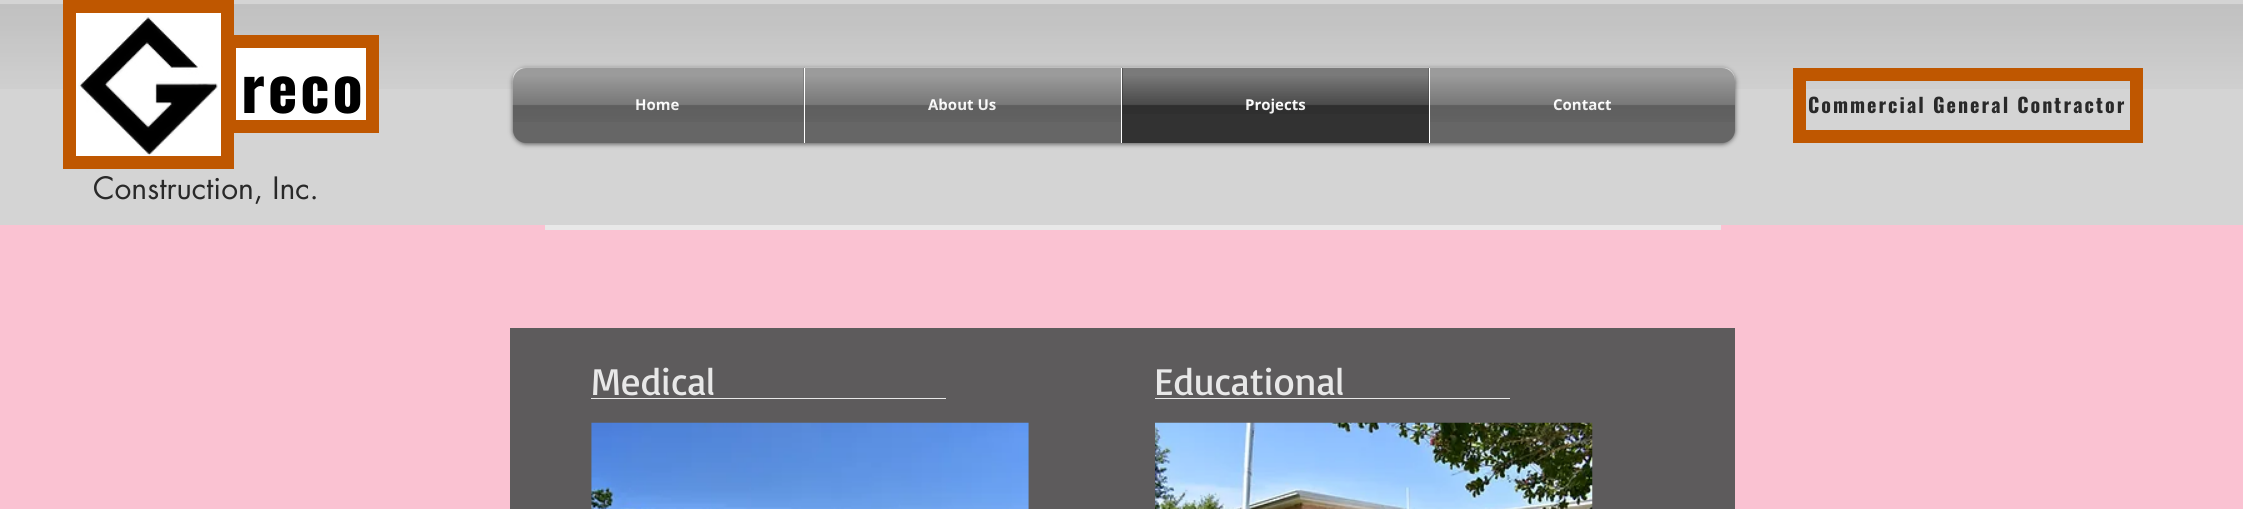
#include <cairo.h>
#include <math.h>
#include <stddef.h>


static void rgb(cairo_t *cr, int r, int g, int b)
{
	cairo_set_source_rgb(cr, r / 255.0, g / 255.0, b / 255.0);
}

static void face(cairo_t *cr, const char *family, double size, int italic, int bold)
{
	cairo_select_font_face(cr, family, italic ? CAIRO_FONT_SLANT_ITALIC : CAIRO_FONT_SLANT_NORMAL,
		bold ? CAIRO_FONT_WEIGHT_BOLD : CAIRO_FONT_WEIGHT_NORMAL);
	cairo_set_font_size(cr, size);
}

static void label(cairo_t *cr, double x, double y, const char *s)
{
	cairo_move_to(cr, x, y);
	cairo_show_text(cr, s);
}

static void tracked(cairo_t *cr, double x, double y, const char *s, double letter, double word)
{
	cairo_move_to(cr, x, y);
	while (*s) {
		char ch[5] = {0};
		int n = 0;
		do ch[n++] = *s++; while ((*s & 0xC0) == 0x80);
		cairo_show_text(cr, ch);
		cairo_rel_move_to(cr, letter + word * (*ch == ' '), 0);
	}
}

static void rect(cairo_t *cr, double x, double y, double w, double h)
{
	cairo_rectangle(cr, x, y, w, h);
	cairo_fill(cr);
}

static void rrect(cairo_t *cr, double x, double y, double w, double h, double r)
{
	cairo_new_sub_path(cr);
	cairo_arc(cr, x + w - r, y + h - r, r, 0, M_PI / 2);
	cairo_arc(cr, x + r, y + h - r, r, M_PI / 2, M_PI);
	cairo_arc(cr, x + r, y + r, r, M_PI, 1.5 * M_PI);
	cairo_arc(cr, x + w - r, y + r, r, 1.5 * M_PI, 2 * M_PI);
	cairo_close_path(cr);
}

static void soft_shadow(cairo_t *cr, double x, double y, double w, double h, double r, double blur, double alpha)
{
	cairo_push_group_with_content(cr, CAIRO_CONTENT_ALPHA);
	cairo_set_operator(cr, CAIRO_OPERATOR_SOURCE);
	for (int i = 15; i >= -15 && fmin(w, h) + blur * i / 3 > 0; i -= 2) {
		double e = blur * i / 6;
		cairo_set_source_rgba(cr, 0, 0, 0, alpha * erfc((i - 1) / 8.5) / 2);
		rrect(cr, x - e, y - e, w + 2 * e, h + 2 * e, fmax(0, fmin(r + e + blur * .6, fmin(w, h) / 2 + e)));
		cairo_fill(cr);
	}
	cairo_pattern_t *soft = cairo_pop_group(cr);
	cairo_mask(cr, soft);
	cairo_pattern_destroy(soft);
}

static void image(cairo_t *cr, const char *path, double x, double y, double w, double h)
{
	cairo_surface_t *image = cairo_image_surface_create_from_png(path);
	cairo_save(cr);
	cairo_set_source_surface(cr, image, x, y);
	cairo_rectangle(cr, x, y, w, h);
	cairo_fill(cr);
	cairo_restore(cr);
	cairo_surface_destroy(image);
}

static void draw(cairo_t *cr) {
	rgb(cr, 250, 194, 210);
	cairo_paint(cr);
	rgb(cr, 212, 212, 212);
	rect(cr, 0, 0, 2243, 225);
	image(cr, "image0.png", 0, 4, 2243, 85);
	rgb(cr, 255, 255, 255);
	rect(cr, 77, 13, 143, 143);
	rrect(cr, 75.5, 10.5, 146, 147, 4.5);
	cairo_set_line_width(cr, 3);
	cairo_stroke(cr);
	image(cr, "image1.png", 78, 15, 140, 141);
	cairo_rectangle(cr, 69.5, 6.5, 158, 156);
	rgb(cr, 191, 87, 0);
	cairo_set_line_width(cr, 13);
	cairo_stroke(cr);
	rgb(cr, 255, 255, 255);
	rect(cr, 236, 48, 130, 72);
	cairo_rectangle(cr, 229.5, 41.5, 143, 85);
	rgb(cr, 191, 87, 0);
	cairo_stroke(cr);
	cairo_rectangle(cr, 1799.5, 74.5, 337, 62);
	cairo_stroke(cr);
	face(cr, "Oswald", 62.5, 0, 1);
	rgb(cr, 0, 0, 0);
	tracked(cr, 241, 113, "reco", 3, 0);
	rgb(cr, 0, 0, 0);
	soft_shadow(cr, 513, 69, 1222, 75, 13, 2.5, 0.6);
	image(cr, "image2.png", 512, 67, 1223, 38);
	rgb(cr, 102, 102, 102);
	cairo_new_path(cr);
	cairo_move_to(cr, 526, 68);
	cairo_line_to(cr, 804, 68);
	cairo_line_to(cr, 804, 143);
	cairo_line_to(cr, 526, 143);
	cairo_curve_to(cr, 519, 143, 513, 137, 513, 130);
	cairo_line_to(cr, 513, 81);
	cairo_curve_to(cr, 513, 74, 519, 68, 526, 68);
	cairo_close_path(cr);
	cairo_fill(cr);
	face(cr, "Open Sans", 15, 0, 1);
	rgb(cr, 255, 255, 255);
	label(cr, 635, 110, "Home");
	image(cr, "image3.png", 512, 67, 292, 55);
	rgb(cr, 102, 102, 102);
	rect(cr, 805, 68, 316, 75);
	rgb(cr, 255, 255, 255);
	rect(cr, 804, 68, 1, 75);
	label(cr, 928, 110, "About Us");
	image(cr, "image4.png", 805, 67, 317, 55);
	rgb(cr, 50, 50, 50);
	rect(cr, 1122, 68, 307, 75);
	rgb(cr, 255, 255, 255);
	rect(cr, 1121, 68, 1, 75);
	label(cr, 1245, 110, "Projects");
	image(cr, "image5.png", 1122, 67, 307, 47);
	rgb(cr, 102, 102, 102);
	cairo_new_path(cr);
	cairo_move_to(cr, 1429, 68);
	cairo_line_to(cr, 1722, 68);
	cairo_curve_to(cr, 1729, 68, 1735, 74, 1735, 81);
	cairo_line_to(cr, 1735, 130);
	cairo_curve_to(cr, 1735, 137, 1729, 143, 1722, 143);
	cairo_line_to(cr, 1429, 143);
	cairo_close_path(cr);
	cairo_fill(cr);
	rgb(cr, 255, 255, 255);
	rect(cr, 1429, 68, 1, 75);
	label(cr, 1553, 110, "Contact");
	image(cr, "image6.png", 1430, 67, 305, 55);
	face(cr, "Oswald", 20, 0, 1);
	rgb(cr, 41, 41, 41);
	tracked(cr, 1808, 113, "Commercial General Contractor", 2, 0);
	face(cr, "futura", 30, 0, 0);
	label(cr, 93, 199, "Construction, Inc.");
	rgb(cr, 232, 232, 232);
	rect(cr, 545, 225, 1176, 5);
	rgb(cr, 93, 91, 92);
	rect(cr, 510, 328, 1225, 181);
	face(cr, "Basic", 38.75, 0, 0);
	rgb(cr, 232, 232, 232);
	label(cr, 591, 395, "Medical");
	label(cr, 1154, 395, "Educational");
	rect(cr, 591, 398, 355, 1);
	rect(cr, 1155, 398, 355, 1);
	image(cr, "image7.png", 591, 422, 438, 87);
	image(cr, "image8.png", 1155, 422, 438, 87);
}

int main(void) {
	cairo_surface_t *surface = cairo_image_surface_create(CAIRO_FORMAT_RGB24, 2243, 509);
	cairo_t *cr = cairo_create(surface);
	cairo_font_options_t *options = cairo_font_options_create();
	cairo_font_options_set_hint_metrics(options, CAIRO_HINT_METRICS_OFF);
	cairo_font_options_set_hint_style(options, CAIRO_HINT_STYLE_NONE);
	cairo_set_font_options(cr, options);
	cairo_set_miter_limit(cr, 4);
	draw(cr);
	cairo_surface_write_to_png(surface, "render.png");
	cairo_font_options_destroy(options);
	cairo_destroy(cr);
	cairo_surface_destroy(surface);
	return 0;
}
